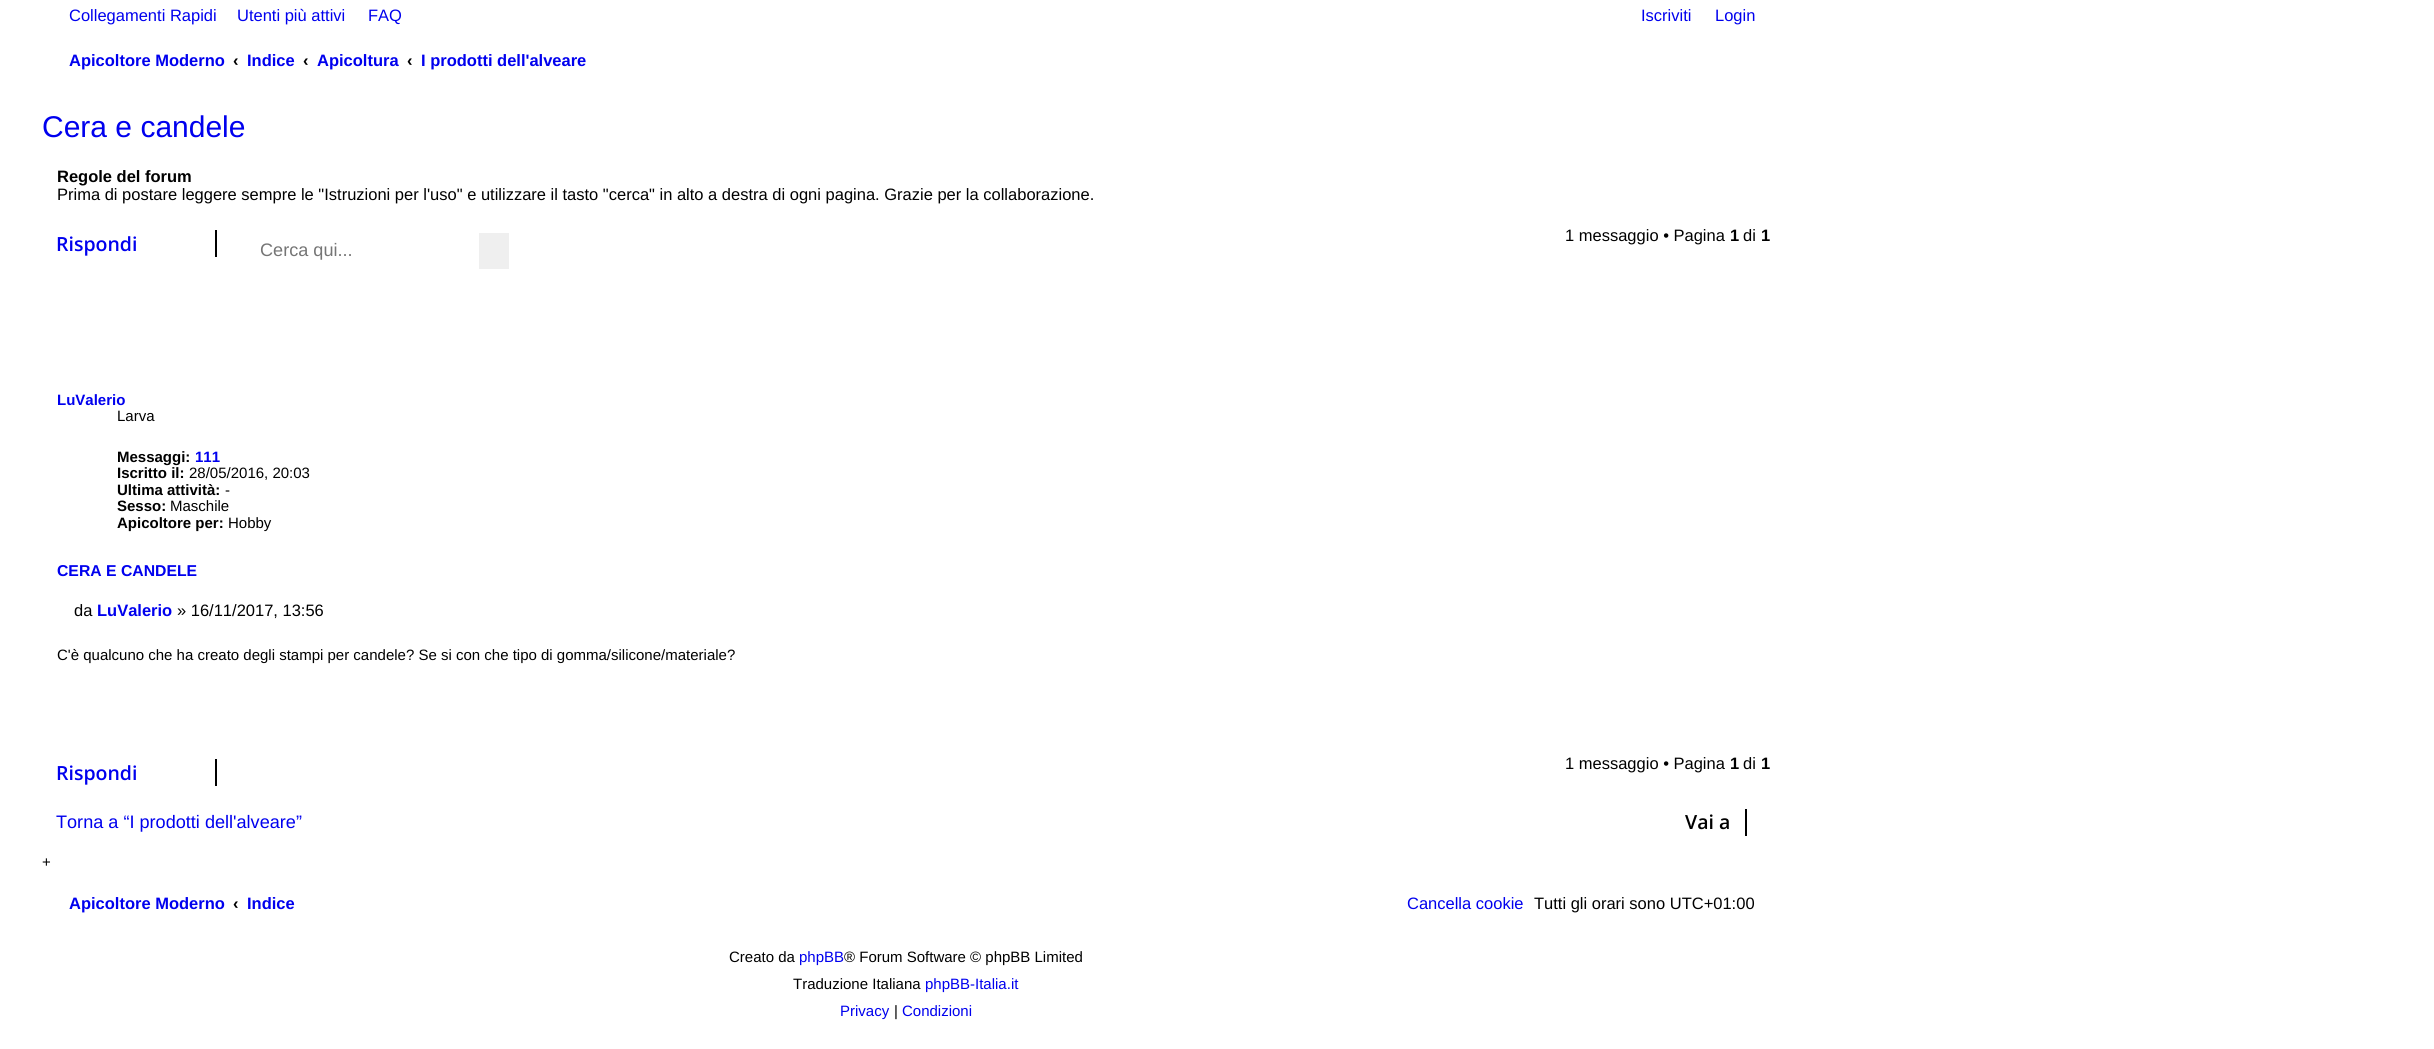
#include <cairo.h>
#include <math.h>
#include <stddef.h>


static void rgb(cairo_t *cr, int r, int g, int b)
{
	cairo_set_source_rgb(cr, r / 255.0, g / 255.0, b / 255.0);
}

static void face(cairo_t *cr, const char *family, double size, int italic, int bold)
{
	cairo_select_font_face(cr, family, italic ? CAIRO_FONT_SLANT_ITALIC : CAIRO_FONT_SLANT_NORMAL,
		bold ? CAIRO_FONT_WEIGHT_BOLD : CAIRO_FONT_WEIGHT_NORMAL);
	cairo_set_font_size(cr, size);
}

static void label(cairo_t *cr, double x, double y, const char *s)
{
	cairo_move_to(cr, x, y);
	cairo_show_text(cr, s);
}

static void rect(cairo_t *cr, double x, double y, double w, double h)
{
	cairo_rectangle(cr, x, y, w, h);
	cairo_fill(cr);
}

static void draw(cairo_t *cr) {
	rgb(cr, 255, 255, 255);
	cairo_paint(cr);
	face(cr, "Liberation Sans", 16.5, 0, 0);
	rgb(cr, 0, 0, 238);
	label(cr, 69, 21, "Collegamenti Rapidi");
	label(cr, 237, 21, "Utenti più attivi");
	label(cr, 368, 21, "FAQ");
	label(cr, 1641, 21, "Iscriviti");
	label(cr, 1715, 21, "Login");
	face(cr, "Liberation Sans", 16.5, 0, 1);
	label(cr, 69, 66, "Apicoltore Moderno");
	rgb(cr, 0, 0, 0);
	label(cr, 233, 66, "‹");
	rgb(cr, 0, 0, 238);
	label(cr, 247, 66, "Indice");
	rgb(cr, 0, 0, 0);
	label(cr, 303, 66, "‹");
	rgb(cr, 0, 0, 238);
	label(cr, 317, 66, "Apicoltura");
	rgb(cr, 0, 0, 0);
	label(cr, 407, 66, "‹");
	rgb(cr, 0, 0, 238);
	label(cr, 421, 66, "I prodotti dell'alveare");
	face(cr, "Liberation Sans", 30, 0, 0);
	label(cr, 42, 137, "Cera e candele");
	face(cr, "Liberation Sans", 16.5, 0, 1);
	rgb(cr, 0, 0, 0);
	label(cr, 57, 182, "Regole del forum");
	face(cr, "Liberation Sans", 16.5, 0, 0);
	label(cr, 57, 200, "Prima di postare leggere sempre le \"Istruzioni per l'uso\" e utilizzare il tasto \"cerca\" in alto a destra di ogni pagina. Grazie per la collaborazione.");
	face(cr, "Open Sans SemiBold", 19.5, 0, 0);
	rgb(cr, 0, 0, 238);
	label(cr, 56, 251, "Rispondi");
	rgb(cr, 0, 0, 0);
	rect(cr, 215, 230, 2, 27);
	face(cr, "Liberation Sans", 18.1, 0, 0);
	rgb(cr, 117, 117, 117);
	label(cr, 260, 256, "Cerca qui...");
	rgb(cr, 239, 239, 239);
	rect(cr, 479, 233, 30, 36);
	face(cr, "Liberation Sans", 16.5, 0, 0);
	rgb(cr, 0, 0, 0);
	label(cr, 1565, 241, "1 messaggio • Pagina");
	face(cr, "Liberation Sans", 16.5, 0, 1);
	label(cr, 1730, 241, "1");
	face(cr, "Liberation Sans", 16.5, 0, 0);
	label(cr, 1743, 241, "di");
	face(cr, "Liberation Sans", 16.5, 0, 1);
	label(cr, 1761, 241, "1");
	face(cr, "Liberation Sans", 15, 0, 1);
	rgb(cr, 0, 0, 238);
	label(cr, 57, 405, "LuValerio");
	face(cr, "Liberation Sans", 15, 0, 0);
	rgb(cr, 0, 0, 0);
	label(cr, 117, 421, "Larva");
	face(cr, "Liberation Sans", 15, 0, 1);
	label(cr, 117, 462, "Messaggi:");
	rgb(cr, 0, 0, 238);
	label(cr, 195, 462, "111");
	rgb(cr, 0, 0, 0);
	label(cr, 117, 478, "Iscritto il:");
	face(cr, "Liberation Sans", 15, 0, 0);
	label(cr, 189, 478, "28/05/2016, 20:03");
	face(cr, "Liberation Sans", 15, 0, 1);
	label(cr, 117, 495, "Ultima attività:");
	face(cr, "Liberation Sans", 15, 0, 0);
	label(cr, 225, 495, "-");
	face(cr, "Liberation Sans", 15, 0, 1);
	label(cr, 117, 511, "Sesso:");
	face(cr, "Liberation Sans", 15, 0, 0);
	label(cr, 170, 511, "Maschile");
	face(cr, "Liberation Sans", 15, 0, 1);
	label(cr, 117, 528, "Apicoltore per:");
	face(cr, "Liberation Sans", 15, 0, 0);
	label(cr, 228, 528, "Hobby");
	face(cr, "Liberation Sans", 15.75, 0, 1);
	rgb(cr, 0, 0, 238);
	label(cr, 57, 576, "CERA E CANDELE");
	face(cr, "Liberation Sans", 16.5, 0, 0);
	rgb(cr, 0, 0, 0);
	label(cr, 74, 616, "da");
	face(cr, "Liberation Sans", 16.5, 0, 1);
	rgb(cr, 0, 0, 238);
	label(cr, 97, 616, "LuValerio");
	face(cr, "Liberation Sans", 16.5, 0, 0);
	rgb(cr, 0, 0, 0);
	label(cr, 177, 616, "» 16/11/2017, 13:56");
	face(cr, "Liberation Sans", 15, 0, 0);
	label(cr, 57, 660, "C'è qualcuno che ha creato degli stampi per candele? Se si con che tipo di gomma/silicone/materiale?");
	face(cr, "Open Sans SemiBold", 19.5, 0, 0);
	rgb(cr, 0, 0, 238);
	label(cr, 56, 780, "Rispondi");
	rgb(cr, 0, 0, 0);
	rect(cr, 215, 759, 2, 27);
	face(cr, "Liberation Sans", 16.5, 0, 0);
	label(cr, 1565, 769, "1 messaggio • Pagina");
	face(cr, "Liberation Sans", 16.5, 0, 1);
	label(cr, 1730, 769, "1");
	face(cr, "Liberation Sans", 16.5, 0, 0);
	label(cr, 1743, 769, "di");
	face(cr, "Liberation Sans", 16.5, 0, 1);
	label(cr, 1761, 769, "1");
	face(cr, "Liberation Sans", 18.1, 0, 0);
	rgb(cr, 0, 0, 238);
	label(cr, 56, 828, "Torna a “I prodotti dell'alveare”");
	face(cr, "Open Sans SemiBold", 19.5, 0, 0);
	rgb(cr, 0, 0, 0);
	label(cr, 1685, 829, "Vai a");
	rect(cr, 1745, 809, 2, 27);
	face(cr, "Liberation Sans", 15, 0, 0);
	label(cr, 42, 867, "+");
	face(cr, "Liberation Sans", 16.5, 0, 1);
	rgb(cr, 0, 0, 238);
	label(cr, 69, 909, "Apicoltore Moderno");
	rgb(cr, 0, 0, 0);
	label(cr, 233, 909, "‹");
	rgb(cr, 0, 0, 238);
	label(cr, 247, 909, "Indice");
	face(cr, "Liberation Sans", 16.5, 0, 0);
	label(cr, 1407, 909, "Cancella cookie");
	rgb(cr, 0, 0, 0);
	label(cr, 1534, 909, "Tutti gli orari sono UTC+01:00");
	face(cr, "Liberation Sans", 15, 0, 0);
	label(cr, 729, 962, "Creato da");
	rgb(cr, 0, 0, 238);
	label(cr, 799, 962, "phpBB");
	rgb(cr, 0, 0, 0);
	label(cr, 844, 962, "® Forum Software © phpBB Limited");
	label(cr, 793, 989, "Traduzione Italiana");
	rgb(cr, 0, 0, 238);
	label(cr, 925, 989, "phpBB-Italia.it");
	label(cr, 840, 1016, "Privacy");
	rgb(cr, 0, 0, 0);
	label(cr, 894, 1016, "|");
	rgb(cr, 0, 0, 238);
	label(cr, 902, 1016, "Condizioni");
}

int main(void) {
	cairo_surface_t *surface = cairo_image_surface_create(CAIRO_FORMAT_RGB24, 2434, 1049);
	cairo_t *cr = cairo_create(surface);
	cairo_font_options_t *options = cairo_font_options_create();
	cairo_font_options_set_hint_metrics(options, CAIRO_HINT_METRICS_OFF);
	cairo_font_options_set_hint_style(options, CAIRO_HINT_STYLE_NONE);
	cairo_set_font_options(cr, options);
	cairo_set_miter_limit(cr, 4);
	draw(cr);
	cairo_surface_write_to_png(surface, "render.png");
	cairo_font_options_destroy(options);
	cairo_destroy(cr);
	cairo_surface_destroy(surface);
	return 0;
}
